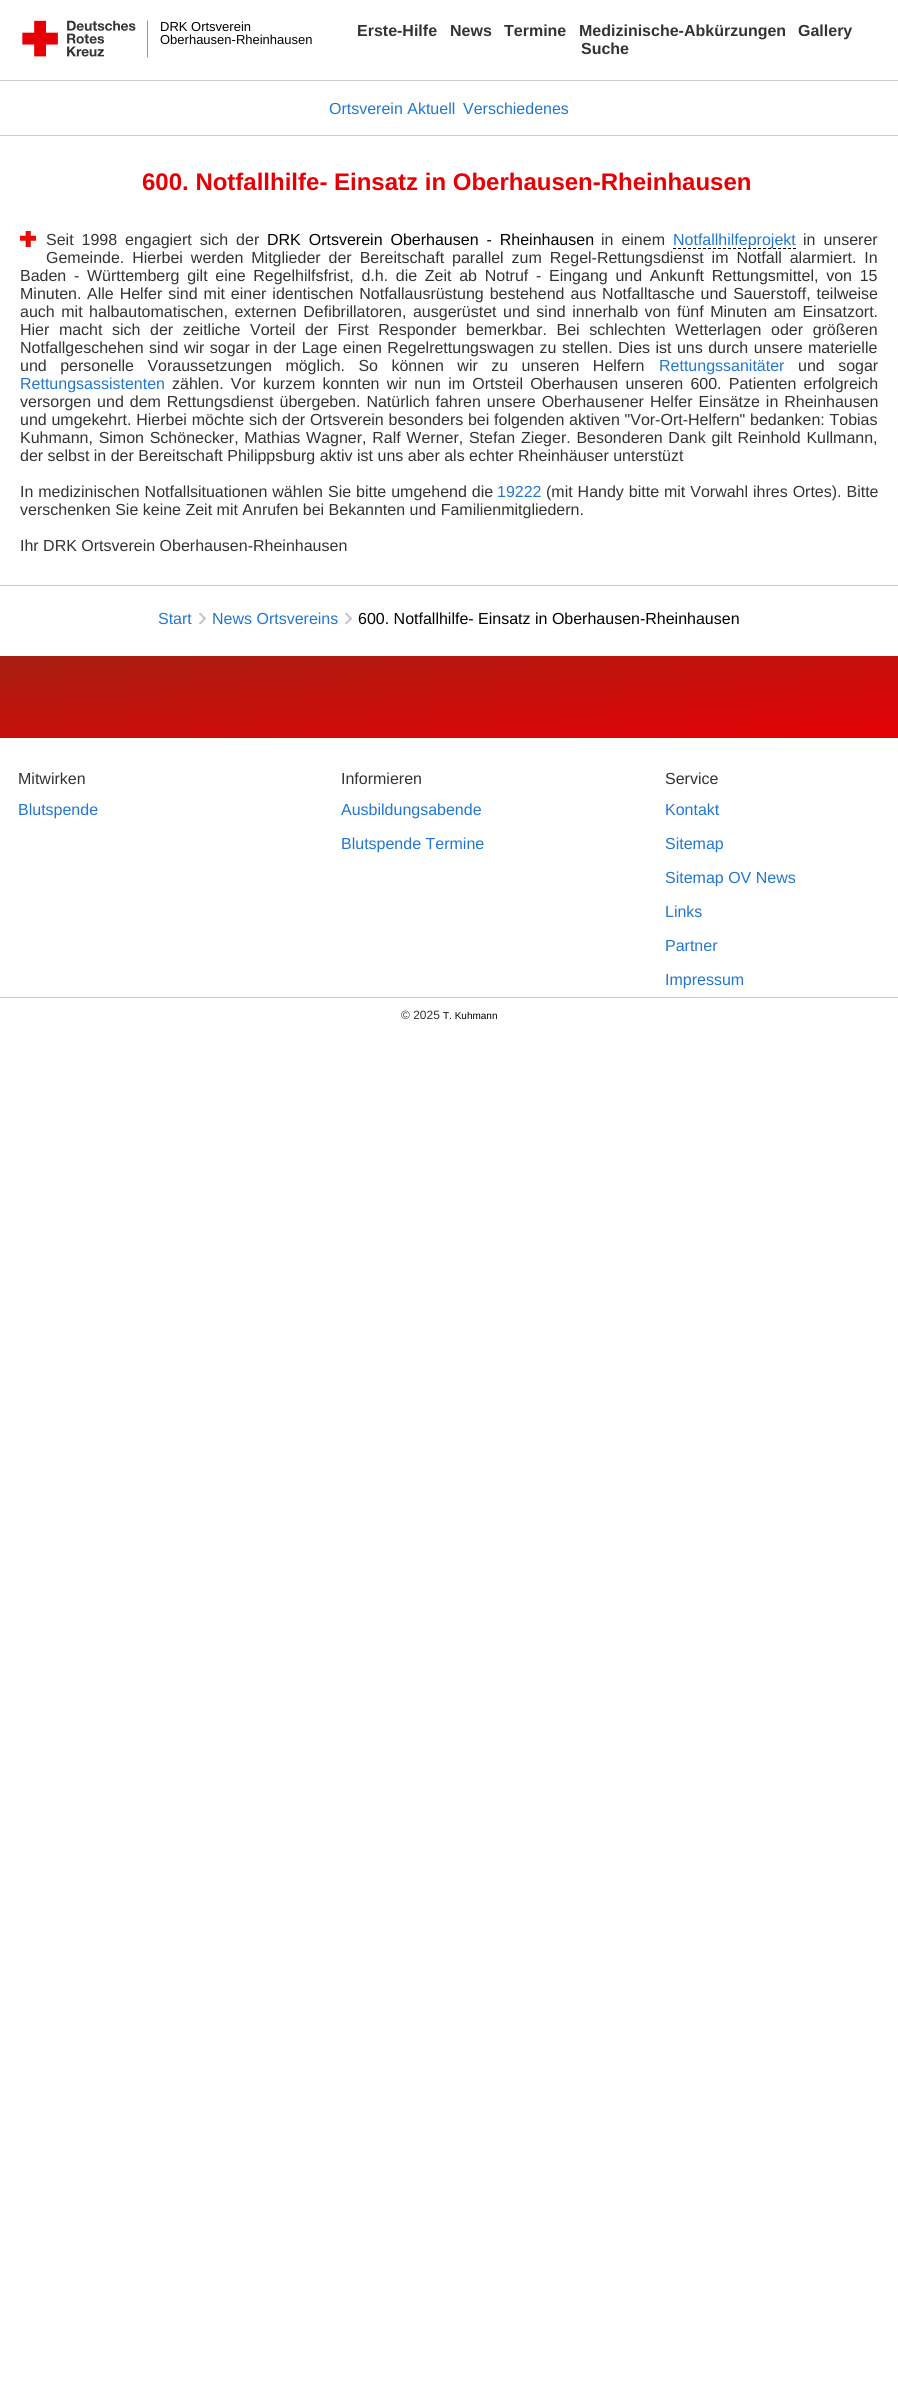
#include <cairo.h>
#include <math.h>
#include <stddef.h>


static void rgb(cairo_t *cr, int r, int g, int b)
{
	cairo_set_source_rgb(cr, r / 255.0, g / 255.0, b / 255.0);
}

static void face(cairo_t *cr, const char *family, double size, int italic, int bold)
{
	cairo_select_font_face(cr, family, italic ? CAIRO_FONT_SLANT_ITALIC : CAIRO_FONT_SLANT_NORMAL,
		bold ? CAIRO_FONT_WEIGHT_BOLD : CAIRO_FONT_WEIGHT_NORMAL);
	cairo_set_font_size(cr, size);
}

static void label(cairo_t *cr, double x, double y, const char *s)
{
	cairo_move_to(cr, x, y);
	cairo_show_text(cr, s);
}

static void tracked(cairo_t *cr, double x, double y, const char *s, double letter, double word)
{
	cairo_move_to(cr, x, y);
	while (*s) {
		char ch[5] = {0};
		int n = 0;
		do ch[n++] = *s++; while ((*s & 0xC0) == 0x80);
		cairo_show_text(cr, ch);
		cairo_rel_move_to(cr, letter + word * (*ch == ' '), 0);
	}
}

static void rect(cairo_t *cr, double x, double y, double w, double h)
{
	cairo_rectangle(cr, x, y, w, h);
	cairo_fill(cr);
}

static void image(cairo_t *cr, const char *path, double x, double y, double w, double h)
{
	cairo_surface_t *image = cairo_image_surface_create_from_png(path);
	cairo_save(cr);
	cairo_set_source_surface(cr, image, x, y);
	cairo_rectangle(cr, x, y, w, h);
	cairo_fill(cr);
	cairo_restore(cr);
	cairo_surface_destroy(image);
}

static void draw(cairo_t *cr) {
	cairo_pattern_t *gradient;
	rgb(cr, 255, 255, 255);
	cairo_paint(cr);
	rgb(cr, 203, 203, 203);
	rect(cr, 0, 80, 898, 1);
	image(cr, "image0.png", 22, 20, 126, 38);
	face(cr, "Liberation Sans", 13, 0, 0);
	rgb(cr, 0, 0, 0);
	label(cr, 160, 31, "DRK Ortsverein");
	label(cr, 160, 44, "Oberhausen-Rheinhausen");
	face(cr, "Liberation Sans", 16, 0, 1);
	rgb(cr, 51, 51, 51);
	label(cr, 357, 36, "Erste-Hilfe");
	label(cr, 450, 36, "News");
	label(cr, 504, 36, "Termine");
	label(cr, 579, 36, "Medizinische-Abkürzungen");
	label(cr, 798, 36, "Gallery");
	label(cr, 581, 54, "Suche");
	rgb(cr, 203, 203, 203);
	rect(cr, 0, 135, 898, 1);
	face(cr, "Liberation Sans", 16, 0, 0);
	rgb(cr, 34, 118, 208);
	label(cr, 329, 114, "Ortsverein Aktuell");
	label(cr, 463, 114, "Verschiedenes");
	face(cr, "Liberation Sans", 24, 0, 1);
	rgb(cr, 230, 0, 5);
	label(cr, 142, 190, "600. Notfallhilfe- Einsatz in Oberhausen-Rheinhausen");
	image(cr, "image1.png", 20, 231, 16, 16);
	face(cr, "Liberation Sans", 16, 0, 0);
	rgb(cr, 51, 51, 51);
	tracked(cr, 46, 245, "Seit 1998 engagiert sich der", 0, 3.5);
	rgb(cr, 0, 0, 0);
	tracked(cr, 267, 245, "DRK Ortsverein Oberhausen - Rheinhausen", 0, 3.5);
	rgb(cr, 51, 51, 51);
	tracked(cr, 601, 245, "in einem", 0, 3.5);
	cairo_new_path(cr);
	cairo_move_to(cr, 673, 248.5);
	cairo_line_to(cr, 796, 248.5);
	rgb(cr, 0, 0, 0);
	cairo_set_line_width(cr, 1);
	cairo_set_dash(cr, (double[]){3, 2}, 2, 0);
	cairo_stroke(cr);
	rgb(cr, 34, 118, 208);
	label(cr, 673, 245, "Notfallhilfeprojekt");
	rgb(cr, 51, 51, 51);
	tracked(cr, 803, 245, "in unserer", 0, 3.5);
	tracked(cr, 46, 263, "Gemeinde. Hierbei werden Mitglieder der Bereitschaft parallel zum Regel-Rettungsdienst im Notfall alarmiert. In", 0, 3.5);
	tracked(cr, 20, 281, "Baden - Württemberg gilt eine Regelhilfsfrist, d.h. die Zeit ab Notruf - Eingang und Ankunft Rettungsmittel, von 15", 0, 3.25);
	label(cr, 20, 299, "Minuten.");
	tracked(cr, 87, 299, "Alle Helfer sind mit einer identischen Notfallausrüstung bestehend aus Notfalltasche und Sauerstoff, teilweise", 0, 1.5);
	tracked(cr, 20, 317, "auch mit halbautomatischen, externen Defibrillatoren, ausgerüstet und sind innerhalb von fünf Minuten am Einsatzort.", 0, 2.1);
	tracked(cr, 20, 335, "Hier macht sich der zeitliche Vorteil der First Responder bemerkbar. Bei schlechten Wetterlagen oder größeren", 0, 5.1);
	tracked(cr, 20, 353, "Notfallgeschehen sind wir sogar in der Lage einen Regelrettungswagen zu stellen. Dies ist uns durch unsere materielle", 0, 1);
	tracked(cr, 20, 371, "und personelle Voraussetzungen möglich. So können wir zu unseren Helfern", 0, 9);
	rgb(cr, 34, 118, 208);
	label(cr, 659, 371, "Rettungssanitäter");
	rgb(cr, 51, 51, 51);
	tracked(cr, 798, 371, "und sogar", 0, 9);
	rgb(cr, 34, 118, 208);
	label(cr, 20, 389, "Rettungsassistenten");
	rgb(cr, 51, 51, 51);
	tracked(cr, 172, 389, "zählen. Vor kurzem konnten wir nun im Ortsteil Oberhausen unseren 600. Patienten erfolgreich", 0, 2.75);
	tracked(cr, 20, 407, "versorgen und dem Rettungsdienst übergeben. Natürlich fahren unsere Oberhausener Helfer Einsätze in Rheinhausen", 0, 1.5);
	tracked(cr, 20, 425, "und umgekehrt. Hierbei möchte sich der Ortsverein besonders bei folgenden aktiven \"Vor-Ort-Helfern\" bedanken: Tobias", 0, 0.3);
	tracked(cr, 20, 443, "Kuhmann, Simon Schönecker, Mathias Wagner, Ralf Werner, Stefan Zieger. Besonderen Dank gilt Reinhold Kullmann,", 0, 1.25);
	label(cr, 20, 461, "der selbst in der Bereitschaft Philippsburg aktiv ist uns aber als echter Rheinhäuser unterstüzt");
	tracked(cr, 20, 497, "In medizinischen Notfallsituationen wählen Sie bitte umgehend die", 0, 0.5);
	rgb(cr, 34, 118, 208);
	label(cr, 497, 497, "19222");
	rgb(cr, 51, 51, 51);
	tracked(cr, 546, 497, "(mit Handy bitte mit Vorwahl ihres Ortes). Bitte", 0, 0.5);
	label(cr, 20, 515, "verschenken Sie keine Zeit mit Anrufen bei Bekannten und Familienmitgliedern.");
	label(cr, 20, 551, "Ihr DRK Ortsverein Oberhausen-Rheinhausen");
	rgb(cr, 203, 203, 203);
	rect(cr, 0, 585, 898, 1);
	rgb(cr, 34, 118, 208);
	label(cr, 158, 624, "Start");
	image(cr, "image2.png", 199, 613, 7, 11);
	label(cr, 212, 624, "News Ortsvereins");
	image(cr, "image3.png", 345, 613, 7, 11);
	rgb(cr, 0, 0, 0);
	label(cr, 358, 624, "600. Notfallhilfe- Einsatz in Oberhausen-Rheinhausen");
	gradient = cairo_pattern_create_linear(442, 616, 456, 778);
	cairo_pattern_add_color_stop_rgba(gradient, 0, 0.647, 0.118, 0.059, 1);
	cairo_pattern_add_color_stop_rgba(gradient, 1, 0.902, 0, 0.02, 1);
	cairo_set_source(cr, gradient);
	cairo_pattern_destroy(gradient);
	rect(cr, 0, 656, 898, 82);
	rgb(cr, 203, 203, 203);
	rect(cr, 0, 997, 898, 1);
	rgb(cr, 51, 51, 51);
	label(cr, 18, 784, "Mitwirken");
	rgb(cr, 34, 118, 208);
	label(cr, 18, 815, "Blutspende");
	rgb(cr, 51, 51, 51);
	label(cr, 341, 784, "Informieren");
	rgb(cr, 34, 118, 208);
	label(cr, 341, 815, "Ausbildungsabende");
	label(cr, 341, 849, "Blutspende Termine");
	rgb(cr, 51, 51, 51);
	label(cr, 665, 784, "Service");
	rgb(cr, 34, 118, 208);
	label(cr, 665, 815, "Kontakt");
	label(cr, 665, 849, "Sitemap");
	label(cr, 665, 883, "Sitemap OV News");
	label(cr, 665, 917, "Links");
	label(cr, 665, 951, "Partner");
	label(cr, 665, 985, "Impressum");
	face(cr, "Liberation Sans", 12, 0, 0);
	rgb(cr, 51, 51, 51);
	label(cr, 401, 1019, "© 2025");
	face(cr, "Liberation Sans", 10, 0, 0);
	rgb(cr, 0, 0, 0);
	label(cr, 443, 1019, "T. Kuhmann");
}

int main(void) {
	cairo_surface_t *surface = cairo_image_surface_create(CAIRO_FORMAT_RGB24, 898, 2403);
	cairo_t *cr = cairo_create(surface);
	cairo_font_options_t *options = cairo_font_options_create();
	cairo_font_options_set_hint_metrics(options, CAIRO_HINT_METRICS_OFF);
	cairo_font_options_set_hint_style(options, CAIRO_HINT_STYLE_NONE);
	cairo_set_font_options(cr, options);
	cairo_set_miter_limit(cr, 4);
	draw(cr);
	cairo_surface_write_to_png(surface, "render.png");
	cairo_font_options_destroy(options);
	cairo_destroy(cr);
	cairo_surface_destroy(surface);
	return 0;
}
